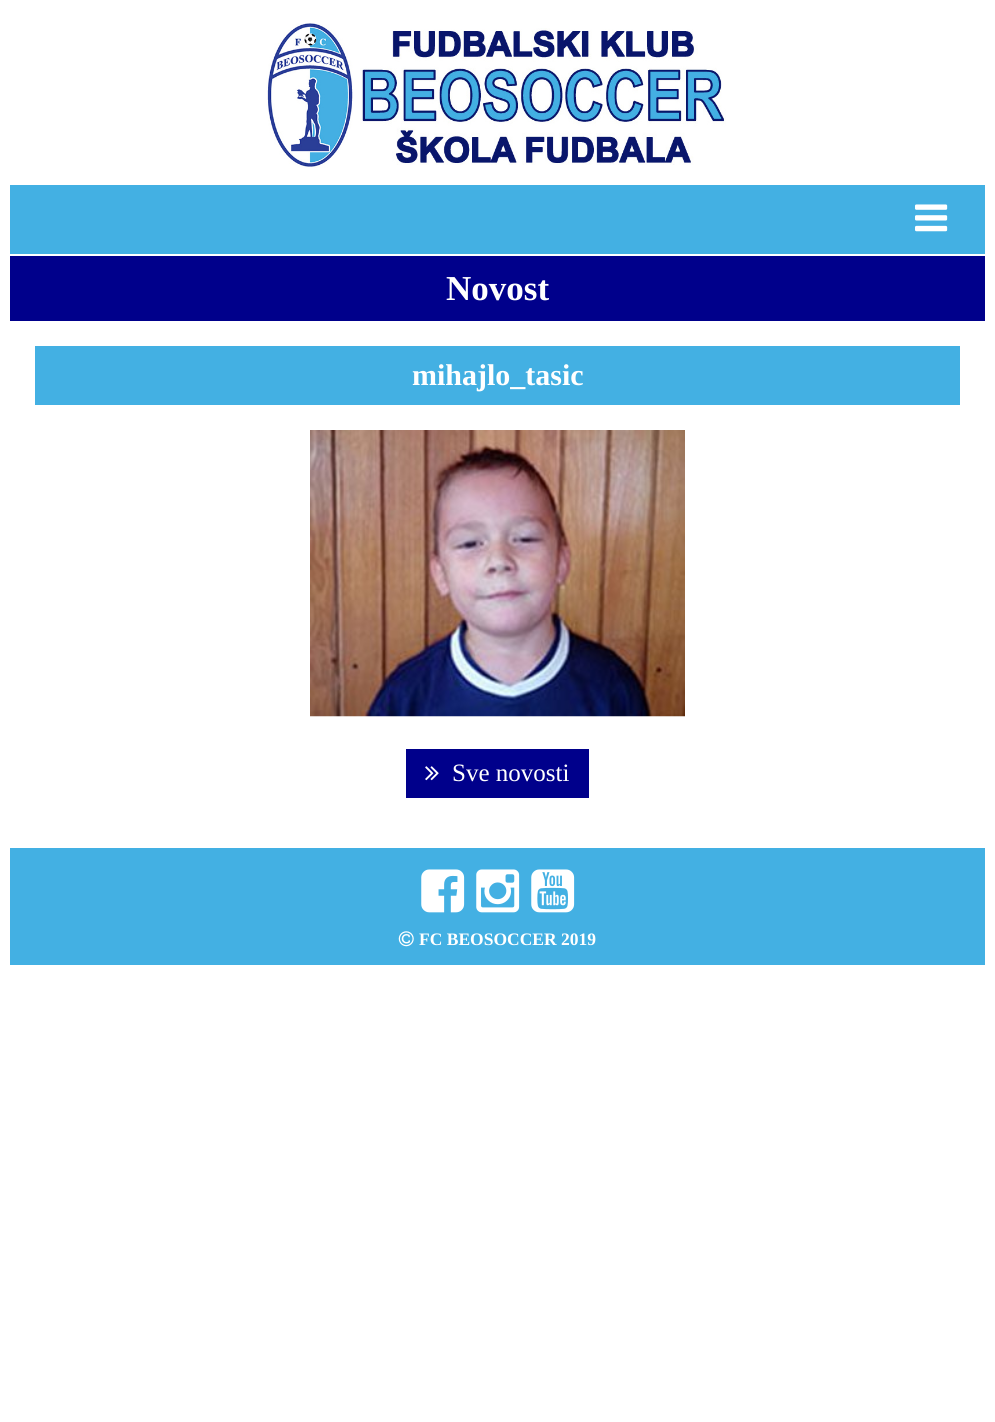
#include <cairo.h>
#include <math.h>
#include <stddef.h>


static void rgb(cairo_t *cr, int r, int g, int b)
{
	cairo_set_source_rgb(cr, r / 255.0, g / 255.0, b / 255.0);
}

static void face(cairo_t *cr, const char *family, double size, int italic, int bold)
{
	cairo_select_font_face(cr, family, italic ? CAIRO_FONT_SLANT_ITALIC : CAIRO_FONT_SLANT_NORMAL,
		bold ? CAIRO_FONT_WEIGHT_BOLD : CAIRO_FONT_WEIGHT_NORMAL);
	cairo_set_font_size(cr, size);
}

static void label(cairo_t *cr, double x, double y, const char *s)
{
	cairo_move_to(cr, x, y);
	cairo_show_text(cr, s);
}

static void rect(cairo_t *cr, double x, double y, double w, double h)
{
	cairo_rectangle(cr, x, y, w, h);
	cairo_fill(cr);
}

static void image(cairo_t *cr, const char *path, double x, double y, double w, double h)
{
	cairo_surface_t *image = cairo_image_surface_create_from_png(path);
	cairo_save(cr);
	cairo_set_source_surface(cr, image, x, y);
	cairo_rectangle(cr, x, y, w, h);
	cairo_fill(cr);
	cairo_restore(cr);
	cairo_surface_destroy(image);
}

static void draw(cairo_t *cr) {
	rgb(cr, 255, 255, 255);
	cairo_paint(cr);
	image(cr, "image0.png", 266, 23, 87, 145);
	image(cr, "image1.png", 360, 28, 366, 137);
	rgb(cr, 67, 176, 227);
	rect(cr, 10, 185, 975, 69);
	image(cr, "image2.png", 915, 204, 33, 28);
	rgb(cr, 0, 0, 139);
	rect(cr, 10, 256, 975, 65);
	face(cr, "Liberation Serif", 35, 0, 1);
	rgb(cr, 255, 255, 255);
	label(cr, 446, 300, "Novost");
	rgb(cr, 67, 176, 227);
	rect(cr, 35, 346, 925, 59);
	face(cr, "Liberation Serif", 30, 0, 1);
	rgb(cr, 255, 255, 255);
	label(cr, 412, 385, "mihajlo_tasic");
	image(cr, "image3.png", 310, 430, 375, 287);
	rgb(cr, 0, 0, 139);
	rect(cr, 406, 749, 183, 49);
	image(cr, "image4.png", 425, 766, 14, 15);
	face(cr, "Liberation Serif", 25, 0, 0);
	rgb(cr, 255, 255, 255);
	label(cr, 452, 781, "Sve novosti");
	rgb(cr, 67, 176, 227);
	rect(cr, 10, 848, 975, 117);
	image(cr, "image5.png", 421, 869, 44, 44);
	image(cr, "image6.png", 476, 869, 44, 44);
	image(cr, "image7.png", 531, 869, 44, 44);
	image(cr, "image8.png", 398, 931, 16, 16);
	face(cr, "Liberation Serif", 17.5, 0, 1);
	rgb(cr, 255, 255, 255);
	label(cr, 419, 945, "FC BEOSOCCER 2019");
}

int main(void) {
	cairo_surface_t *surface = cairo_image_surface_create(CAIRO_FORMAT_RGB24, 995, 1422);
	cairo_t *cr = cairo_create(surface);
	cairo_font_options_t *options = cairo_font_options_create();
	cairo_font_options_set_hint_metrics(options, CAIRO_HINT_METRICS_OFF);
	cairo_font_options_set_hint_style(options, CAIRO_HINT_STYLE_NONE);
	cairo_set_font_options(cr, options);
	cairo_set_miter_limit(cr, 4);
	draw(cr);
	cairo_surface_write_to_png(surface, "render.png");
	cairo_font_options_destroy(options);
	cairo_destroy(cr);
	cairo_surface_destroy(surface);
	return 0;
}
